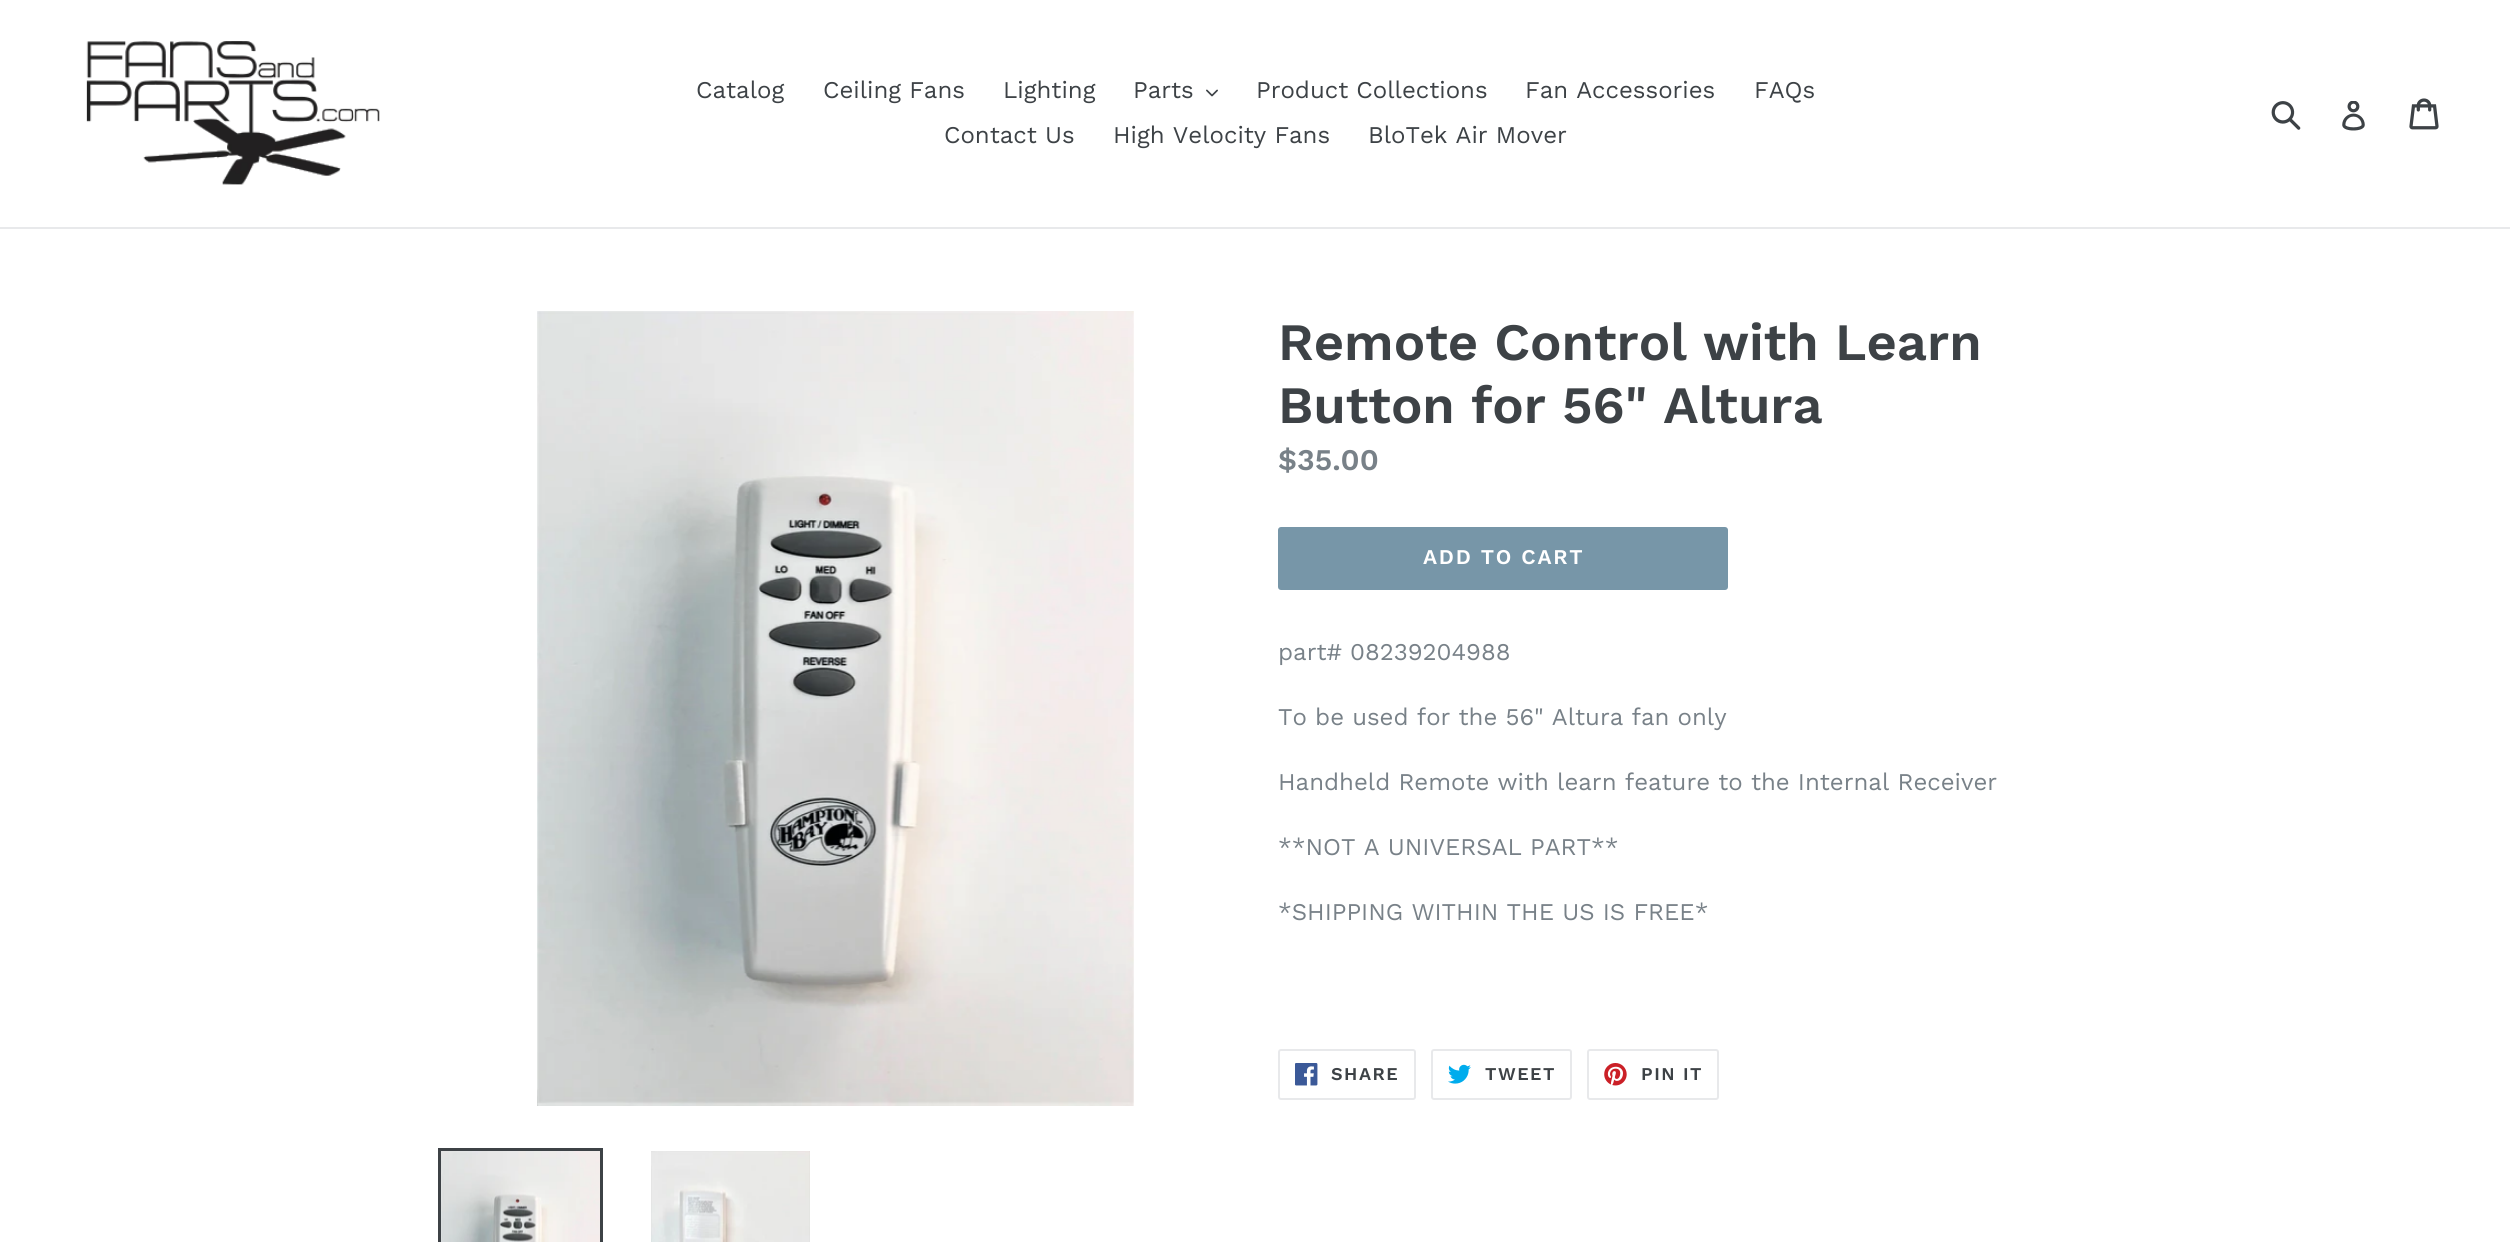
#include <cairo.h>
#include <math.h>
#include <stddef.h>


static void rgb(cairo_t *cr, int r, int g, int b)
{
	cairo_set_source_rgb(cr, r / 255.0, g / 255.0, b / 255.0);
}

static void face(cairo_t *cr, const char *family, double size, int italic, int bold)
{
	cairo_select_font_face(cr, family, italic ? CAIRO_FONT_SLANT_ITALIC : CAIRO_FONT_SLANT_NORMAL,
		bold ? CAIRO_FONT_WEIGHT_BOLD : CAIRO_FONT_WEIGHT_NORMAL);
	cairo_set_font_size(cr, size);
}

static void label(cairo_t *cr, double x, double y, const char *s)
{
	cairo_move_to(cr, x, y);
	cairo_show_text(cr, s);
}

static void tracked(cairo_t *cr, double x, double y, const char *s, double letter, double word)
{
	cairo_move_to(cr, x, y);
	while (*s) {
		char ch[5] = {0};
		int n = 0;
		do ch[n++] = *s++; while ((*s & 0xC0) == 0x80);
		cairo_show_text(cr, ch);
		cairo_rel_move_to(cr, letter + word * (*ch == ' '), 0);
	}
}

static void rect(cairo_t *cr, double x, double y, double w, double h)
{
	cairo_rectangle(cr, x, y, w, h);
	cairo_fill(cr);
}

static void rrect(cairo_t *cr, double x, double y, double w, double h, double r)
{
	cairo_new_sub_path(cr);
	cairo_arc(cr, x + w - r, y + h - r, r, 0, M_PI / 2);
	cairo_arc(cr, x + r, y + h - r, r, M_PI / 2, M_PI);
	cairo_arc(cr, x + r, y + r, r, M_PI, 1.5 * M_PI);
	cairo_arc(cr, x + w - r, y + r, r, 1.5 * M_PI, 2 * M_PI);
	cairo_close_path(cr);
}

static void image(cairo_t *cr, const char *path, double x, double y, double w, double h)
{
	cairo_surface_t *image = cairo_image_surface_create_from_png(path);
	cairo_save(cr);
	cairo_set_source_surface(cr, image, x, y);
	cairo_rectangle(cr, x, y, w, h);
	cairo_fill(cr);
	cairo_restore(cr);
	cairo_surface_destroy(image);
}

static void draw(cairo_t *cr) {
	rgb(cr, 255, 255, 255);
	cairo_paint(cr);
	rgb(cr, 232, 233, 235);
	rect(cr, 0, 227, 2510, 2);
	image(cr, "image0.png", 86, 41, 294, 144);
	face(cr, "Work Sans", 24, 0, 0);
	rgb(cr, 61, 66, 70);
	label(cr, 696, 98, "Catalog");
	label(cr, 823, 98, "Ceiling Fans");
	label(cr, 1003, 98, "Lighting");
	label(cr, 1133, 98, "Parts");
	image(cr, "image1.png", 1206, 89, 12, 8);
	label(cr, 1256, 98, "Product Collections");
	label(cr, 1525, 98, "Fan Accessories");
	label(cr, 1754, 98, "FAQs");
	label(cr, 944, 143, "Contact Us");
	label(cr, 1113, 143, "High Velocity Fans");
	label(cr, 1368, 143, "BloTek Air Mover");
	image(cr, "image2.png", 2271, 101, 30, 29);
	image(cr, "image3.png", 2342, 101, 23, 30);
	image(cr, "image4.png", 2409, 98, 30, 32);
	image(cr, "image5.png", 537, 311, 597, 795);
	cairo_rectangle(cr, 439.5, 1149.5, 162, 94);
	cairo_set_line_width(cr, 3);
	cairo_stroke(cr);
	image(cr, "image6.png", 441, 1151, 159, 91);
	image(cr, "image7.png", 651, 1151, 159, 91);
	face(cr, "Work Sans SemiBold", 52.5, 0, 0);
	label(cr, 1278, 360, "Remote Control with Learn");
	label(cr, 1278, 423, "Button for 56\" Altura");
	face(cr, "Work Sans SemiBold", 30, 0, 0);
	rgb(cr, 120, 129, 136);
	label(cr, 1278, 470, "$35.00");
	rgb(cr, 119, 150, 168);
	rrect(cr, 1278, 527, 450, 63, 3);
	cairo_fill(cr);
	face(cr, "Work Sans SemiBold", 21, 0, 0);
	rgb(cr, 255, 255, 255);
	tracked(cr, 1423, 564, "ADD TO CART", 1.75, 0);
	face(cr, "Work Sans", 24, 0, 0);
	rgb(cr, 120, 129, 136);
	label(cr, 1278, 660, "part# 08239204988");
	label(cr, 1278, 725, "To be used for the 56\" Altura fan only");
	label(cr, 1278, 790, "Handheld Remote with learn feature to the Internal Receiver");
	label(cr, 1278, 855, "**NOT A UNIVERSAL PART**");
	label(cr, 1278, 920, "*SHIPPING WITHIN THE US IS FREE*");
	rrect(cr, 1279, 1050, 136, 49, 2);
	rgb(cr, 232, 233, 235);
	cairo_set_line_width(cr, 2);
	cairo_stroke(cr);
	image(cr, "image8.png", 1295, 1063, 23, 23);
	face(cr, "Work Sans SemiBold", 18, 0, 0);
	rgb(cr, 61, 66, 70);
	tracked(cr, 1331, 1080, "SHARE", 1.5, 0);
	rrect(cr, 1432, 1050, 139, 49, 2);
	rgb(cr, 232, 233, 235);
	cairo_stroke(cr);
	image(cr, "image9.png", 1448, 1064, 23, 20);
	rgb(cr, 61, 66, 70);
	tracked(cr, 1485, 1080, "TWEET", 1.5, 0);
	rrect(cr, 1588, 1050, 130, 49, 2);
	rgb(cr, 232, 233, 235);
	cairo_stroke(cr);
	image(cr, "image10.png", 1604, 1063, 23, 23);
	rgb(cr, 61, 66, 70);
	tracked(cr, 1641, 1080, "PIN IT", 1.5, 0);
}

int main(void) {
	cairo_surface_t *surface = cairo_image_surface_create(CAIRO_FORMAT_RGB24, 2510, 1242);
	cairo_t *cr = cairo_create(surface);
	cairo_font_options_t *options = cairo_font_options_create();
	cairo_font_options_set_hint_metrics(options, CAIRO_HINT_METRICS_OFF);
	cairo_font_options_set_hint_style(options, CAIRO_HINT_STYLE_NONE);
	cairo_set_font_options(cr, options);
	cairo_set_miter_limit(cr, 4);
	draw(cr);
	cairo_surface_write_to_png(surface, "render.png");
	cairo_font_options_destroy(options);
	cairo_destroy(cr);
	cairo_surface_destroy(surface);
	return 0;
}
